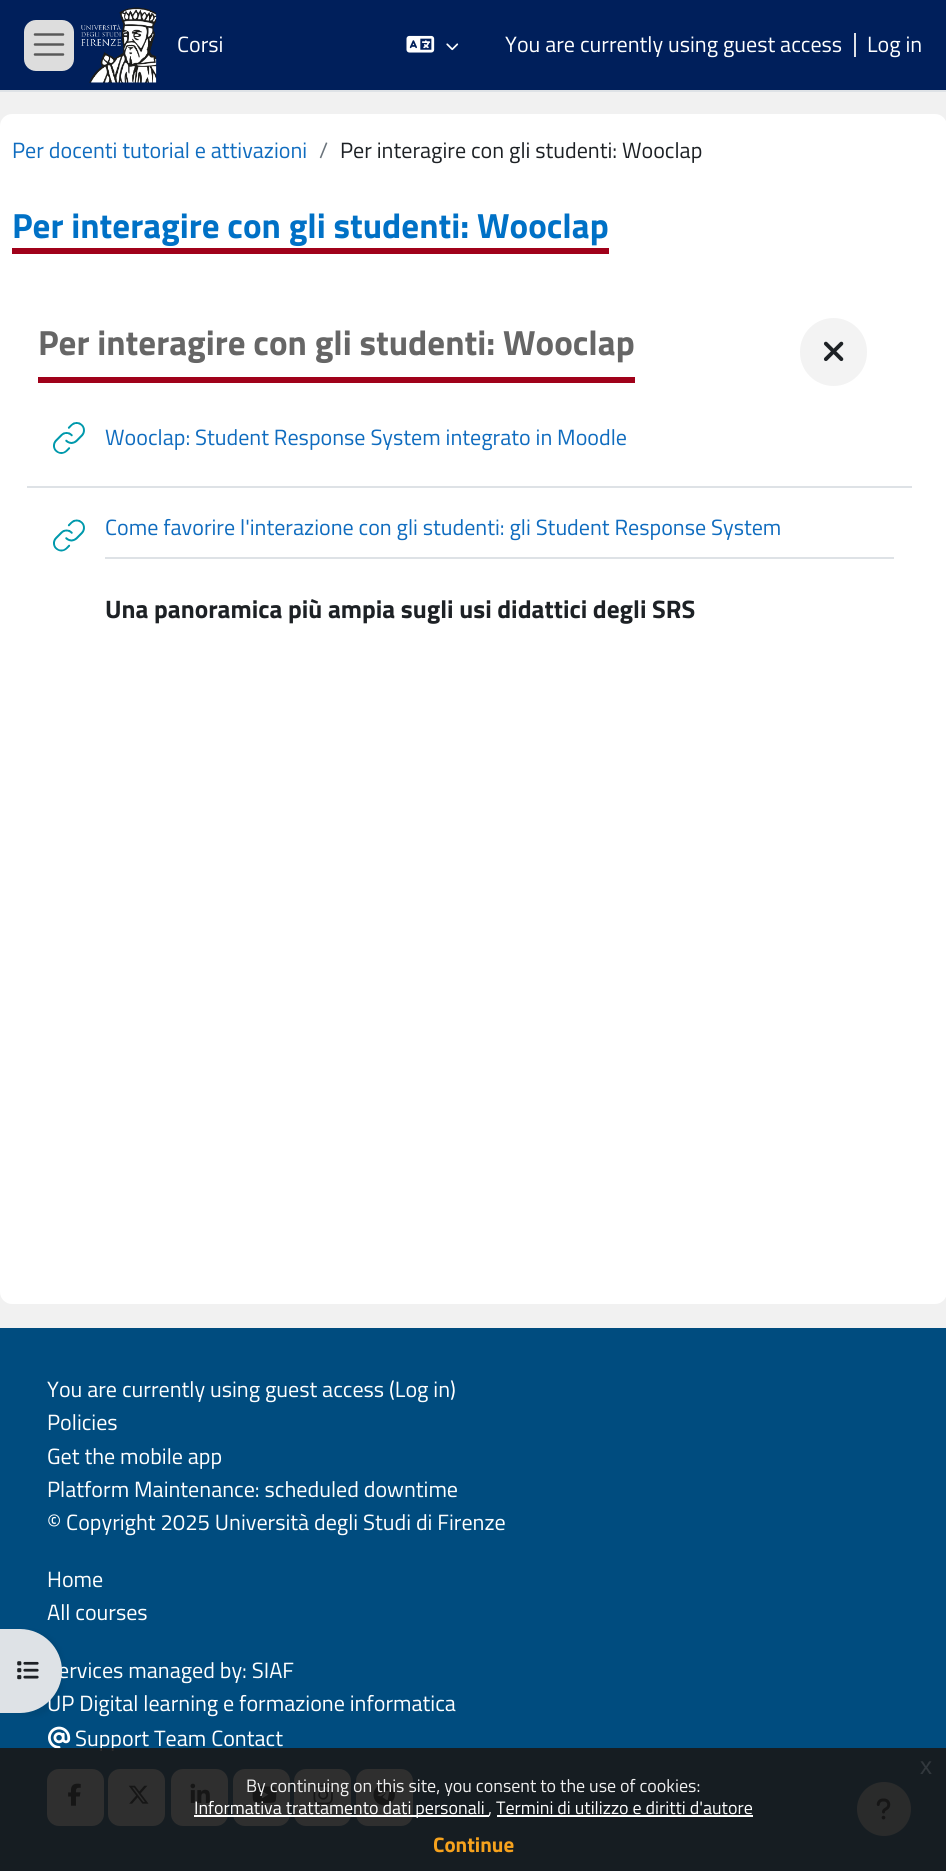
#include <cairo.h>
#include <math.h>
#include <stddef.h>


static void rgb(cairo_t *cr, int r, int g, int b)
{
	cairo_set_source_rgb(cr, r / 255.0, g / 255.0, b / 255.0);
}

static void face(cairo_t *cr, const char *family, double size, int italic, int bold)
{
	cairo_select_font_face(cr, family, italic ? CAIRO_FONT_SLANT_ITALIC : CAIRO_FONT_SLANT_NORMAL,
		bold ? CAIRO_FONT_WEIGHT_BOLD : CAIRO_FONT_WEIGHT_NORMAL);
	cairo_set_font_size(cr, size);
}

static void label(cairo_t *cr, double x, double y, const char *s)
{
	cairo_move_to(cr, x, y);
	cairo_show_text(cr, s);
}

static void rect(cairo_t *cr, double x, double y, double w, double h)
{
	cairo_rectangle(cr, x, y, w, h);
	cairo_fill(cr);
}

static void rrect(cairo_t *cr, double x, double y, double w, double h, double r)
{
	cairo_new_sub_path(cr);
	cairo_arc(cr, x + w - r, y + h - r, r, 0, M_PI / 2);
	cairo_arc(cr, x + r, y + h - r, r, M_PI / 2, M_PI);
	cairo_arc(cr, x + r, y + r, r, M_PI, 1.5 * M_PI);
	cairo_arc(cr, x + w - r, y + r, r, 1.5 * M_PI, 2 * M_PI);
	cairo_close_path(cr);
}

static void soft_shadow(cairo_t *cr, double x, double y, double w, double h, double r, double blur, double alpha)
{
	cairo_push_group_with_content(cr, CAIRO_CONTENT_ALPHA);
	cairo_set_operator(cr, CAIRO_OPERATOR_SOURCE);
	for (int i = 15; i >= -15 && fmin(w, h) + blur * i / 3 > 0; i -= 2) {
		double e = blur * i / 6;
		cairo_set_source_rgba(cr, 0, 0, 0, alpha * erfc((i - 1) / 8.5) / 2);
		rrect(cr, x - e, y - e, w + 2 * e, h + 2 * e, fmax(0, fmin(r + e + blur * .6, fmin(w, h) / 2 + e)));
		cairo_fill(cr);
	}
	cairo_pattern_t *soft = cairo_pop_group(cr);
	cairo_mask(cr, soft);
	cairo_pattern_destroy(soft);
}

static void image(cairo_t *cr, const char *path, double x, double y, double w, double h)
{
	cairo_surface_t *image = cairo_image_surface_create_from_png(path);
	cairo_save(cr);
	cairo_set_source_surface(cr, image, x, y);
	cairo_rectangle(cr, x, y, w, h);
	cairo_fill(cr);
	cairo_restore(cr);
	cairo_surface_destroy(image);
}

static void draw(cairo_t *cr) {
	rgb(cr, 241, 241, 241);
	cairo_paint(cr);
	rgb(cr, 0, 31, 91);
	rect(cr, 0, 0, 946, 90);
	rgb(cr, 222, 226, 230);
	rect(cr, 0, 90, 946, 2);
	rgb(cr, 221, 221, 221);
	rrect(cr, 24, 20, 50, 51, 12);
	cairo_fill(cr);
	cairo_new_path(cr);
	cairo_move_to(cr, 35, 34.5);
	cairo_line_to(cr, 63, 34.5);
	cairo_move_to(cr, 35, 44.5);
	cairo_line_to(cr, 63, 44.5);
	cairo_move_to(cr, 35, 54.5);
	cairo_line_to(cr, 63, 54.5);
	rgb(cr, 88, 88, 88);
	cairo_set_line_width(cr, 2.5);
	cairo_set_line_cap(cr, CAIRO_LINE_CAP_ROUND);
	cairo_stroke(cr);
	image(cr, "image0.png", 81, 7, 76, 76);
	face(cr, "Titillium Web", 22.1, 0, 0);
	rgb(cr, 255, 255, 255);
	label(cr, 177, 52, "Corsi");
	image(cr, "image1.png", 406, 35, 29, 18);
	image(cr, "image2.png", 446, 43, 13, 8);
	label(cr, 505, 52, "You are currently using guest access");
	rgb(cr, 222, 226, 230);
	rect(cr, 854, 33, 2, 24);
	rgb(cr, 255, 255, 255);
	label(cr, 867, 52, "Log in");
	rrect(cr, 0, 114, 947, 1190, 12);
	cairo_fill(cr);
	rgb(cr, 15, 108, 191);
	label(cr, 12, 158, "Per docenti tutorial e attivazioni");
	rgb(cr, 106, 115, 123);
	label(cr, 319, 158, "/");
	rgb(cr, 29, 33, 37);
	label(cr, 340, 158, "Per interagire con gli studenti: Wooclap");
	face(cr, "Titillium Web", 35, 0, 1);
	rgb(cr, 0, 113, 198);
	label(cr, 12, 238, "Per interagire con gli studenti: Wooclap");
	rgb(cr, 160, 1, 26);
	rect(cr, 12, 248, 597, 6);
	rgb(cr, 102, 102, 102);
	label(cr, 38, 355, "Per interagire con gli studenti: Wooclap");
	rgb(cr, 160, 1, 26);
	rect(cr, 38, 377, 597, 6);
	rgb(cr, 243, 243, 243);
	rrect(cr, 800, 318, 67, 68, 33.5);
	cairo_fill(cr);
	image(cr, "image3.png", 823, 341, 21, 21);
	image(cr, "image4.png", 53, 422, 32, 32);
	face(cr, "Titillium Web", 22.1, 0, 0);
	rgb(cr, 15, 108, 191);
	label(cr, 105, 445, "Wooclap: Student Response System integrato in Moodle");
	rgb(cr, 222, 226, 230);
	rect(cr, 27, 486, 885, 2);
	image(cr, "image5.png", 53, 519, 32, 33);
	rgb(cr, 15, 108, 191);
	label(cr, 105, 535, "Come favorire l'interazione con gli studenti: gli Student Response System");
	rgb(cr, 222, 226, 230);
	rect(cr, 105, 557, 789, 2);
	face(cr, "Titillium Web", 25.3, 0, 1);
	rgb(cr, 29, 33, 37);
	label(cr, 105, 618, "Una panoramica più ampia sugli usi didattici degli SRS");
	rgb(cr, 0, 76, 127);
	rect(cr, 0, 1328, 946, 543);
	rgb(cr, 0, 0, 0);
	soft_shadow(cr, 0, 1632, 62, 84, 42, 3, 0.07);
	face(cr, "Titillium Web", 22.1, 0, 0);
	rgb(cr, 255, 255, 255);
	label(cr, 58, 1678, "ervices managed by: SIAF");
	label(cr, 47, 1711, "UP Digital learning e formazione informatica");
	rgb(cr, 222, 226, 230);
	cairo_new_path(cr);
	cairo_move_to(cr, 0, 1629);
	cairo_line_to(cr, 20, 1629);
	cairo_curve_to(cr, 43, 1629, 62, 1648, 62, 1671);
	cairo_curve_to(cr, 62, 1694, 43, 1713, 20, 1713);
	cairo_line_to(cr, 0, 1713);
	cairo_close_path(cr);
	cairo_fill(cr);
	image(cr, "image6.png", 17, 1661, 22, 19);
	rgb(cr, 255, 255, 255);
	label(cr, 47, 1397, "You are currently using guest access (Log in)");
	label(cr, 47, 1430, "Policies");
	label(cr, 47, 1464, "Get the mobile app");
	label(cr, 47, 1497, "Platform Maintenance: scheduled downtime");
	label(cr, 47, 1530, "© Copyright 2025 Università degli Studi di Firenze");
	label(cr, 47, 1587, "Home");
	label(cr, 47, 1620, "All courses");
	image(cr, "image7.png", 48, 1726, 23, 23);
	label(cr, 75, 1746, "Support Team Contact");
	rrect(cr, 47, 1769, 57, 57, 12);
	cairo_fill(cr);
	image(cr, "image8.png", 68, 1783, 13, 23);
	rrect(cr, 108, 1769, 57, 57, 12);
	cairo_fill(cr);
	image(cr, "image9.png", 128, 1785, 21, 19);
	rrect(cr, 171, 1769, 57, 57, 12);
	cairo_fill(cr);
	image(cr, "image10.png", 190, 1783, 20, 20);
	rrect(cr, 233, 1769, 57, 57, 12);
	cairo_fill(cr);
	image(cr, "image11.png", 252, 1786, 25, 17);
	rrect(cr, 294, 1769, 57, 57, 12);
	cairo_fill(cr);
	image(cr, "image12.png", 313, 1785, 20, 20);
	rrect(cr, 356, 1769, 57, 57, 12);
	cairo_fill(cr);
	image(cr, "image13.png", 373, 1784, 22, 22);
	rgb(cr, 206, 212, 218);
	cairo_arc(cr, 884, 1809, 27, 0, 2 * M_PI);
	cairo_fill(cr);
	image(cr, "image14.png", 876, 1798, 15, 22);
	cairo_set_source_rgba(cr, 0.098, 0.098, 0.098, 0.9);
	rect(cr, 0, 1748, 946, 123);
	face(cr, "Liberation Sans", 24, 0, 0);
	rgb(cr, 50, 56, 61);
	label(cr, 920, 1774, "x");
	face(cr, "Titillium Web", 18, 0, 0);
	rgb(cr, 239, 239, 239);
	label(cr, 246, 1792, "By continuing on this site, you consent to the use of cookies:");
	rgb(cr, 255, 255, 255);
	rect(cr, 194, 1815, 295, 2);
	label(cr, 194, 1814, "Informativa trattamento dati personali");
	rgb(cr, 239, 239, 239);
	label(cr, 488, 1814, ",");
	rgb(cr, 255, 255, 255);
	rect(cr, 497, 1815, 256, 2);
	label(cr, 496, 1814, "Termini di utilizzo e diritti d'autore");
	face(cr, "Titillium Web", 21, 0, 1);
	rgb(cr, 246, 162, 29);
	label(cr, 433, 1852, "Continue");
}

int main(void) {
	cairo_surface_t *surface = cairo_image_surface_create(CAIRO_FORMAT_RGB24, 946, 1871);
	cairo_t *cr = cairo_create(surface);
	cairo_font_options_t *options = cairo_font_options_create();
	cairo_font_options_set_hint_metrics(options, CAIRO_HINT_METRICS_OFF);
	cairo_font_options_set_hint_style(options, CAIRO_HINT_STYLE_NONE);
	cairo_set_font_options(cr, options);
	cairo_set_miter_limit(cr, 4);
	draw(cr);
	cairo_surface_write_to_png(surface, "render.png");
	cairo_font_options_destroy(options);
	cairo_destroy(cr);
	cairo_surface_destroy(surface);
	return 0;
}
